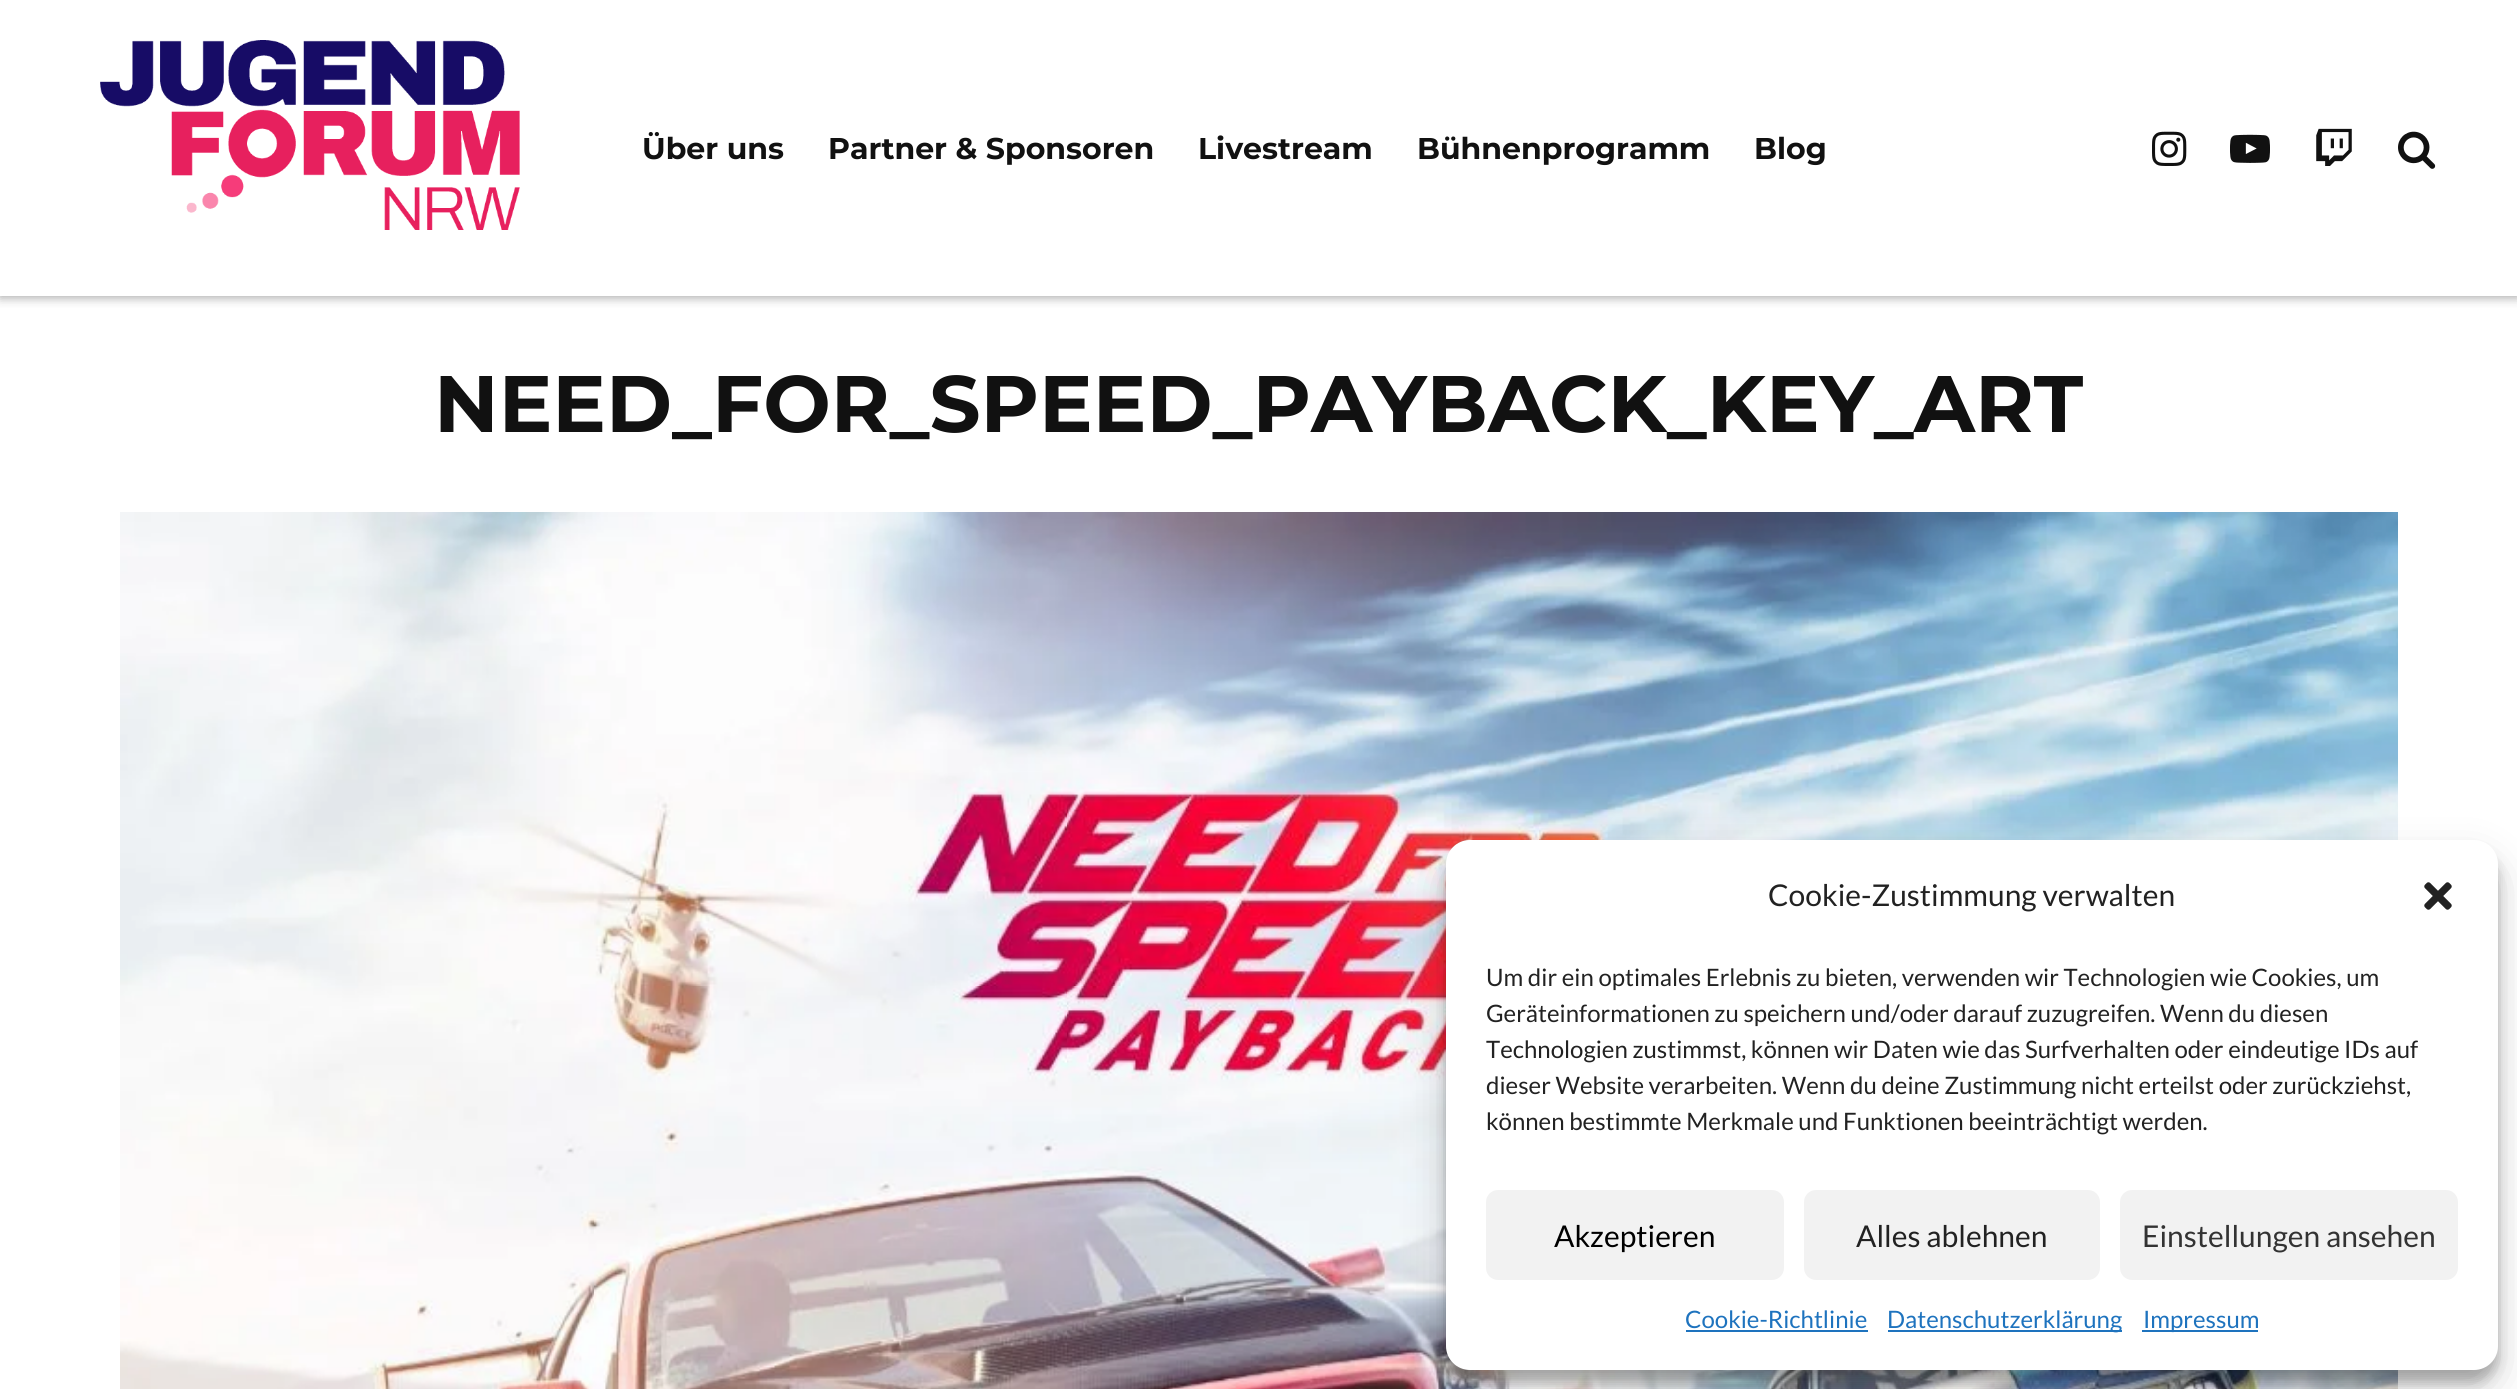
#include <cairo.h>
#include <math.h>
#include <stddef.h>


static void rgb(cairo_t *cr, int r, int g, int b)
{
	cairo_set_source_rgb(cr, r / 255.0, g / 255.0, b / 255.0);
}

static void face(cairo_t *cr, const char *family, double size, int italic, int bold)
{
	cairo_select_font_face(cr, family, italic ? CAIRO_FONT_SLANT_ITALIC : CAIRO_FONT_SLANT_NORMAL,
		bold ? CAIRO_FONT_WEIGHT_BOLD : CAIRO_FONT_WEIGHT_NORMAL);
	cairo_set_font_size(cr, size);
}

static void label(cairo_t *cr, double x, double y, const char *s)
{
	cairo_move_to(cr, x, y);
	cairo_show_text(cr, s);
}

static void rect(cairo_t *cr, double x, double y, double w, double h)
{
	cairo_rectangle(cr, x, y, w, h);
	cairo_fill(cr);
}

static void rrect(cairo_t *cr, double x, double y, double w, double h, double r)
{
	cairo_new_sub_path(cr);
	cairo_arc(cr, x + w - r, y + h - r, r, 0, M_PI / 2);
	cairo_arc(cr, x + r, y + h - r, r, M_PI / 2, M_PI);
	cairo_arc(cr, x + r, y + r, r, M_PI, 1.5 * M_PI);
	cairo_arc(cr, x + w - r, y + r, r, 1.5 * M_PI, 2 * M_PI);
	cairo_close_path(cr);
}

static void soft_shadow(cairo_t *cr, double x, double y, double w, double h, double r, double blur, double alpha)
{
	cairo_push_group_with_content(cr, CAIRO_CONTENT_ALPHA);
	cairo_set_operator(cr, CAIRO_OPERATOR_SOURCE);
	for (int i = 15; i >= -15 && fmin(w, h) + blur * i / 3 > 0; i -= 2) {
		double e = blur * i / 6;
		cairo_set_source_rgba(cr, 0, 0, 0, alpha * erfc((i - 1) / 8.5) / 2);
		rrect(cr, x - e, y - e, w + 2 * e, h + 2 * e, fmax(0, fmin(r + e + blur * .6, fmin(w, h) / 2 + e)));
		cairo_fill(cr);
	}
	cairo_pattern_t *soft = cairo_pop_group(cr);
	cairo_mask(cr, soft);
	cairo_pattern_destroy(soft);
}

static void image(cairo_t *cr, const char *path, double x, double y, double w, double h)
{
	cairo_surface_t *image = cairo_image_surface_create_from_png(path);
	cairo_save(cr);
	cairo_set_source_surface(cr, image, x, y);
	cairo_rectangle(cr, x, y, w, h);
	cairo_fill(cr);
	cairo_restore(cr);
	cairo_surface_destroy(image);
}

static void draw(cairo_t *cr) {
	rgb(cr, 255, 255, 255);
	cairo_paint(cr);
	cairo_save(cr);
	cairo_rectangle(cr, 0, 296, 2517, 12);
	cairo_clip(cr);
	rgb(cr, 172, 172, 172);
	soft_shadow(cr, 0, 2, 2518, 296, 0, 5, 1);
	cairo_restore(cr);
	image(cr, "image0.png", 100, 40, 420, 190);
	face(cr, "Montserrat", 30, 0, 1);
	rgb(cr, 17, 17, 17);
	label(cr, 642, 159, "Über uns");
	label(cr, 828, 159, "Partner & Sponsoren");
	label(cr, 1198, 159, "Livestream");
	label(cr, 1417, 159, "Bühnenprogramm");
	label(cr, 1754, 159, "Blog");
	image(cr, "image1.png", 2152, 131, 35, 35);
	image(cr, "image2.png", 2230, 134, 40, 29);
	image(cr, "image3.png", 2316, 128, 36, 38);
	image(cr, "image4.png", 2398, 131, 38, 38);
	face(cr, "Montserrat", 80, 0, 1);
	label(cr, 434, 432, "NEED_FOR_SPEED_PAYBACK_KEY_ART");
	image(cr, "image5.png", 120, 512, 2278, 877);
	rgb(cr, 0, 0, 0);
	soft_shadow(cr, 1446, 852, 1052, 530, 24, 6, 0.23);
	soft_shadow(cr, 1446, 860, 1052, 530, 24, 20, 0.19);
	rgb(cr, 255, 255, 255);
	rrect(cr, 1446, 840, 1052, 530, 24);
	cairo_fill(cr);
	face(cr, "Lato", 30, 0, 0);
	rgb(cr, 34, 34, 34);
	label(cr, 1768, 906, "Cookie-Zustimmung verwalten");
	image(cr, "image6.png", 2424, 882, 28, 28);
	face(cr, "Lato", 24, 0, 0);
	label(cr, 1486, 986, "Um dir ein optimales Erlebnis zu bieten, verwenden wir Technologien wie Cookies, um");
	label(cr, 1486, 1022, "Geräteinformationen zu speichern und/oder darauf zuzugreifen. Wenn du diesen");
	label(cr, 1486, 1058, "Technologien zustimmst, können wir Daten wie das Surfverhalten oder eindeutige IDs auf");
	label(cr, 1486, 1094, "dieser Website verarbeiten. Wenn du deine Zustimmung nicht erteilst oder zurückziehst,");
	label(cr, 1486, 1130, "können bestimmte Merkmale und Funktionen beeinträchtigt werden.");
	rgb(cr, 242, 242, 242);
	rrect(cr, 1487, 1191, 296, 88, 11);
	cairo_fill_preserve(cr);
	cairo_stroke(cr);
	face(cr, "Lato", 30, 0, 0);
	rgb(cr, 0, 0, 0);
	label(cr, 1554, 1247, "Akzeptieren");
	rgb(cr, 242, 242, 242);
	rrect(cr, 1805, 1191, 294, 88, 11);
	cairo_fill_preserve(cr);
	cairo_stroke(cr);
	rgb(cr, 34, 34, 34);
	label(cr, 1856, 1247, "Alles ablehnen");
	rgb(cr, 242, 242, 242);
	rrect(cr, 2121, 1191, 336, 88, 11);
	cairo_fill_preserve(cr);
	cairo_stroke(cr);
	rgb(cr, 51, 51, 51);
	label(cr, 2142, 1247, "Einstellungen ansehen");
	face(cr, "Lato", 24, 0, 0);
	rgb(cr, 30, 115, 190);
	label(cr, 1685, 1328, "Cookie-Richtlinie");
	rect(cr, 1686, 1330, 182, 2);
	rect(cr, 1888, 1330, 234, 2);
	label(cr, 1887, 1328, "Datenschutzerklärung");
	rect(cr, 2142, 1330, 116, 2);
	label(cr, 2143, 1328, "Impressum");
}

int main(void) {
	cairo_surface_t *surface = cairo_image_surface_create(CAIRO_FORMAT_RGB24, 2517, 1389);
	cairo_t *cr = cairo_create(surface);
	cairo_font_options_t *options = cairo_font_options_create();
	cairo_font_options_set_hint_metrics(options, CAIRO_HINT_METRICS_OFF);
	cairo_font_options_set_hint_style(options, CAIRO_HINT_STYLE_NONE);
	cairo_set_font_options(cr, options);
	cairo_set_miter_limit(cr, 4);
	draw(cr);
	cairo_surface_write_to_png(surface, "render.png");
	cairo_font_options_destroy(options);
	cairo_destroy(cr);
	cairo_surface_destroy(surface);
	return 0;
}
